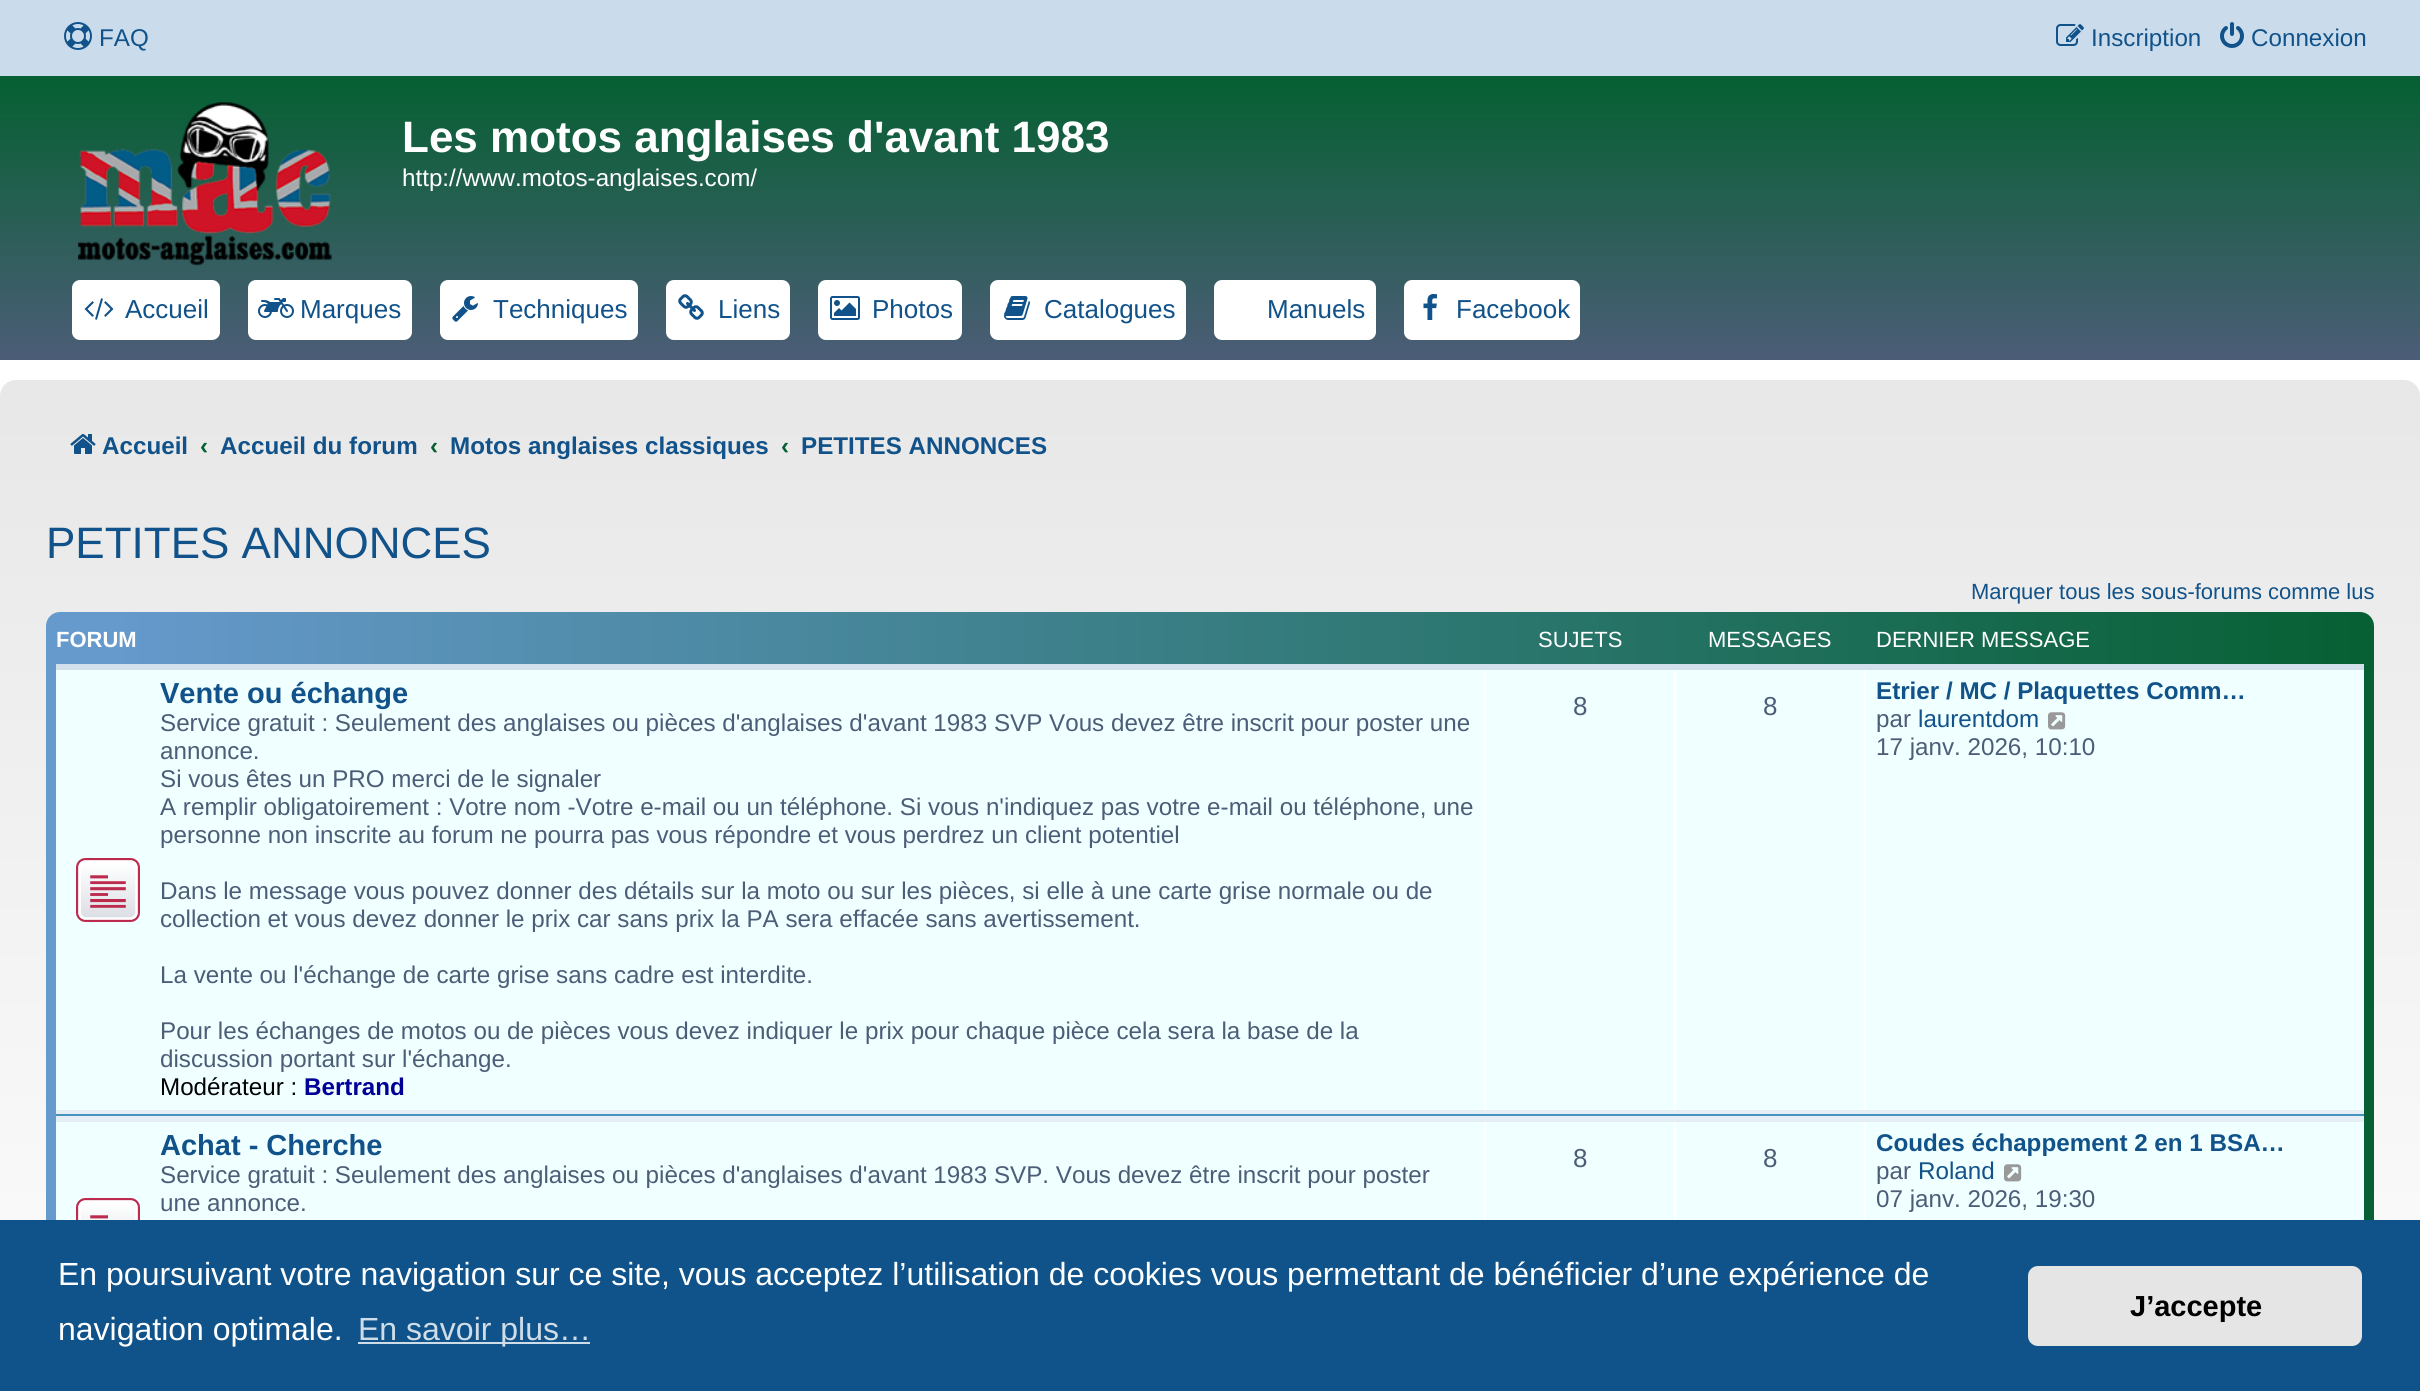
#include <cairo.h>
#include <math.h>
#include <stddef.h>


static void rgb(cairo_t *cr, int r, int g, int b)
{
	cairo_set_source_rgb(cr, r / 255.0, g / 255.0, b / 255.0);
}

static void face(cairo_t *cr, const char *family, double size, int italic, int bold)
{
	cairo_select_font_face(cr, family, italic ? CAIRO_FONT_SLANT_ITALIC : CAIRO_FONT_SLANT_NORMAL,
		bold ? CAIRO_FONT_WEIGHT_BOLD : CAIRO_FONT_WEIGHT_NORMAL);
	cairo_set_font_size(cr, size);
}

static void label(cairo_t *cr, double x, double y, const char *s)
{
	cairo_move_to(cr, x, y);
	cairo_show_text(cr, s);
}

static void rect(cairo_t *cr, double x, double y, double w, double h)
{
	cairo_rectangle(cr, x, y, w, h);
	cairo_fill(cr);
}

static void rrect(cairo_t *cr, double x, double y, double w, double h, double r)
{
	cairo_new_sub_path(cr);
	cairo_arc(cr, x + w - r, y + h - r, r, 0, M_PI / 2);
	cairo_arc(cr, x + r, y + h - r, r, M_PI / 2, M_PI);
	cairo_arc(cr, x + r, y + r, r, M_PI, 1.5 * M_PI);
	cairo_arc(cr, x + w - r, y + r, r, 1.5 * M_PI, 2 * M_PI);
	cairo_close_path(cr);
}

static void image(cairo_t *cr, const char *path, double x, double y, double w, double h)
{
	cairo_surface_t *image = cairo_image_surface_create_from_png(path);
	cairo_save(cr);
	cairo_set_source_surface(cr, image, x, y);
	cairo_rectangle(cr, x, y, w, h);
	cairo_fill(cr);
	cairo_restore(cr);
	cairo_surface_destroy(image);
}

static void draw(cairo_t *cr) {
	cairo_pattern_t *gradient;
	rgb(cr, 255, 255, 255);
	cairo_paint(cr);
	rgb(cr, 202, 220, 235);
	rect(cr, 0, 0, 2420, 76);
	image(cr, "image0.png", 64, 22, 28, 28);
	face(cr, "Liberation Sans", 24.2, 0, 0);
	rgb(cr, 16, 82, 137);
	label(cr, 99, 46, "FAQ");
	image(cr, "image1.png", 2056, 24, 28, 22);
	label(cr, 2091, 46, "Inscription");
	image(cr, "image2.png", 2220, 22, 24, 26);
	label(cr, 2251, 46, "Connexion");
	gradient = cairo_pattern_create_linear(1210, 72, 1210, 360);
	cairo_pattern_add_color_stop_rgba(gradient, 0.03, 0.024, 0.376, 0.2, 1);
	cairo_pattern_add_color_stop_rgba(gradient, 1, 0.298, 0.365, 0.467, 1);
	cairo_set_source(cr, gradient);
	cairo_pattern_destroy(gradient);
	rect(cr, 0, 76, 2420, 284);
	image(cr, "image3.png", 78, 102, 254, 164);
	face(cr, "Liberation Sans", 44, 0, 1);
	rgb(cr, 255, 255, 255);
	label(cr, 402, 152, "Les motos anglaises d'avant 1983");
	face(cr, "Liberation Sans", 24.2, 0, 0);
	label(cr, 402, 186, "http://www.motos-anglaises.com/");
	rrect(cr, 72, 280, 148, 60, 8);
	cairo_fill(cr);
	image(cr, "image4.png", 84, 298, 30, 22);
	face(cr, "Liberation Sans", 26, 0, 0);
	rgb(cr, 16, 82, 137);
	label(cr, 125, 318, "Accueil");
	rgb(cr, 255, 255, 255);
	rrect(cr, 248, 280, 164, 60, 8);
	cairo_fill(cr);
	image(cr, "image5.png", 258, 298, 36, 20);
	rgb(cr, 16, 82, 137);
	label(cr, 300, 318, "Marques");
	rgb(cr, 255, 255, 255);
	rrect(cr, 440, 280, 198, 60, 8);
	cairo_fill(cr);
	image(cr, "image6.png", 452, 296, 26, 26);
	rgb(cr, 16, 82, 137);
	label(cr, 493, 318, "Techniques");
	rgb(cr, 255, 255, 255);
	rrect(cr, 666, 280, 124, 60, 8);
	cairo_fill(cr);
	image(cr, "image7.png", 678, 294, 26, 26);
	rgb(cr, 16, 82, 137);
	label(cr, 718, 318, "Liens");
	rgb(cr, 255, 255, 255);
	rrect(cr, 818, 280, 144, 60, 8);
	cairo_fill(cr);
	image(cr, "image8.png", 830, 296, 30, 24);
	rgb(cr, 16, 82, 137);
	label(cr, 872, 318, "Photos");
	rgb(cr, 255, 255, 255);
	rrect(cr, 990, 280, 196, 60, 8);
	cairo_fill(cr);
	image(cr, "image9.png", 1004, 296, 26, 24);
	rgb(cr, 16, 82, 137);
	label(cr, 1044, 318, "Catalogues");
	rgb(cr, 255, 255, 255);
	rrect(cr, 1214, 280, 162, 60, 8);
	cairo_fill(cr);
	rgb(cr, 16, 82, 137);
	label(cr, 1267, 318, "Manuels");
	rgb(cr, 255, 255, 255);
	rrect(cr, 1404, 280, 176, 60, 8);
	cairo_fill(cr);
	image(cr, "image10.png", 1423, 294, 14, 26);
	rgb(cr, 16, 82, 137);
	label(cr, 1456, 318, "Facebook");
	gradient = cairo_pattern_create_linear(1210, 380, 1210, 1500);
	cairo_pattern_add_color_stop_rgba(gradient, 0.03, 0.91, 0.91, 0.91, 1);
	cairo_pattern_add_color_stop_rgba(gradient, 1, 1, 1, 1, 1);
	cairo_set_source(cr, gradient);
	cairo_pattern_destroy(gradient);
	rrect(cr, 0, 380, 2420, 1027, 16);
	cairo_fill(cr);
	image(cr, "image11.png", 70, 434, 26, 20);
	face(cr, "Liberation Sans", 24.2, 0, 1);
	rgb(cr, 16, 82, 137);
	label(cr, 102, 454, "Accueil");
	rgb(cr, 6, 96, 51);
	label(cr, 200, 454, "‹");
	rgb(cr, 16, 82, 137);
	label(cr, 220, 454, "Accueil du forum");
	rgb(cr, 6, 96, 51);
	label(cr, 430, 454, "‹");
	rgb(cr, 16, 82, 137);
	label(cr, 450, 454, "Motos anglaises classiques");
	rgb(cr, 6, 96, 51);
	label(cr, 781, 454, "‹");
	rgb(cr, 16, 82, 137);
	label(cr, 801, 454, "PETITES ANNONCES");
	face(cr, "Liberation Sans", 44, 0, 0);
	label(cr, 46, 558, "PETITES ANNONCES");
	face(cr, "Liberation Sans", 22, 0, 0);
	label(cr, 1971, 599, "Marquer tous les sous-forums comme lus");
	gradient = cairo_pattern_create_linear(46, 983, 2374, 983);
	cairo_pattern_add_color_stop_rgba(gradient, 0.03, 0.4, 0.6, 0.8, 1);
	cairo_pattern_add_color_stop_rgba(gradient, 1, 0.024, 0.376, 0.2, 1);
	cairo_set_source(cr, gradient);
	cairo_pattern_destroy(gradient);
	rrect(cr, 46, 612, 2328, 742, 14);
	cairo_fill(cr);
	face(cr, "Liberation Sans", 22, 0, 1);
	rgb(cr, 255, 255, 255);
	label(cr, 56, 647, "FORUM");
	face(cr, "Liberation Sans", 22, 0, 0);
	label(cr, 1538, 647, "SUJETS");
	label(cr, 1708, 647, "MESSAGES");
	label(cr, 1876, 647, "DERNIER MESSAGE");
	gradient = cairo_pattern_create_linear(1210, 664, 1210, 1344);
	cairo_pattern_add_color_stop_rgba(gradient, 0, 0.824, 0.878, 0.922, 1);
	cairo_pattern_add_color_stop_rgba(gradient, 1, 0.933, 0.961, 0.976, 1);
	cairo_set_source(cr, gradient);
	cairo_pattern_destroy(gradient);
	rect(cr, 56, 664, 2308, 458);
	rgb(cr, 70, 146, 191);
	rect(cr, 56, 1114, 2308, 2);
	rgb(cr, 240, 255, 255);
	rect(cr, 56, 670, 2308, 440);
	image(cr, "image12.png", 76, 858, 64, 64);
	face(cr, "Liberation Sans", 29, 0, 1);
	rgb(cr, 16, 82, 137);
	label(cr, 160, 703, "Vente ou échange");
	face(cr, "Liberation Sans", 24.2, 0, 0);
	rgb(cr, 76, 93, 119);
	label(cr, 160, 731, "Service gratuit : Seulement des anglaises ou pièces d'anglaises d'avant 1983 SVP Vous devez être inscrit pour poster une");
	label(cr, 160, 759, "annonce.");
	label(cr, 160, 787, "Si vous êtes un PRO merci de le signaler");
	label(cr, 160, 815, "A remplir obligatoirement : Votre nom -Votre e-mail ou un téléphone. Si vous n'indiquez pas votre e-mail ou téléphone, une");
	label(cr, 160, 843, "personne non inscrite au forum ne pourra pas vous répondre et vous perdrez un client potentiel");
	label(cr, 160, 899, "Dans le message vous pouvez donner des détails sur la moto ou sur les pièces, si elle à une carte grise normale ou de");
	label(cr, 160, 927, "collection et vous devez donner le prix car sans prix la PA sera effacée sans avertissement.");
	label(cr, 160, 983, "La vente ou l'échange de carte grise sans cadre est interdite.");
	label(cr, 160, 1039, "Pour les échanges de motos ou de pièces vous devez indiquer le prix pour chaque pièce cela sera la base de la");
	label(cr, 160, 1067, "discussion portant sur l'échange.");
	rgb(cr, 0, 0, 0);
	label(cr, 160, 1095, "Modérateur :");
	face(cr, "Liberation Sans", 24.2, 0, 1);
	rgb(cr, 0, 0, 153);
	label(cr, 304, 1095, "Bertrand");
	rgb(cr, 255, 255, 255);
	rect(cr, 1484, 670, 2, 440);
	face(cr, "Liberation Sans", 26, 0, 0);
	rgb(cr, 76, 93, 119);
	label(cr, 1573, 715, "8");
	rgb(cr, 255, 255, 255);
	rect(cr, 1674, 670, 2, 440);
	rgb(cr, 76, 93, 119);
	label(cr, 1763, 715, "8");
	rgb(cr, 255, 255, 255);
	rect(cr, 1864, 670, 2, 440);
	face(cr, "Liberation Sans", 24.2, 0, 1);
	rgb(cr, 16, 82, 137);
	label(cr, 1876, 699, "Etrier / MC / Plaquettes Comm…");
	face(cr, "Liberation Sans", 24.2, 0, 0);
	rgb(cr, 76, 93, 119);
	label(cr, 1876, 727, "par");
	rgb(cr, 16, 82, 137);
	label(cr, 1918, 727, "laurentdom");
	image(cr, "image13.png", 2048, 712, 18, 18);
	rgb(cr, 76, 93, 119);
	label(cr, 1876, 755, "17 janv. 2026, 10:10");
	rgb(cr, 240, 255, 255);
	rect(cr, 56, 1122, 2308, 98);
	image(cr, "image14.png", 76, 1198, 64, 22);
	face(cr, "Liberation Sans", 29, 0, 1);
	rgb(cr, 16, 82, 137);
	label(cr, 160, 1155, "Achat - Cherche");
	face(cr, "Liberation Sans", 24.2, 0, 0);
	rgb(cr, 76, 93, 119);
	label(cr, 160, 1183, "Service gratuit : Seulement des anglaises ou pièces d'anglaises d'avant 1983 SVP. Vous devez être inscrit pour poster");
	label(cr, 160, 1211, "une annonce.");
	rgb(cr, 255, 255, 255);
	rect(cr, 1484, 1122, 2, 98);
	face(cr, "Liberation Sans", 26, 0, 0);
	rgb(cr, 76, 93, 119);
	label(cr, 1573, 1167, "8");
	rgb(cr, 255, 255, 255);
	rect(cr, 1674, 1122, 2, 98);
	rgb(cr, 76, 93, 119);
	label(cr, 1763, 1167, "8");
	rgb(cr, 255, 255, 255);
	rect(cr, 1864, 1122, 2, 98);
	face(cr, "Liberation Sans", 24.2, 0, 1);
	rgb(cr, 16, 82, 137);
	label(cr, 1876, 1151, "Coudes échappement 2 en 1 BSA…");
	face(cr, "Liberation Sans", 24.2, 0, 0);
	rgb(cr, 76, 93, 119);
	label(cr, 1876, 1179, "par");
	rgb(cr, 16, 82, 137);
	label(cr, 1918, 1179, "Roland");
	image(cr, "image13.png", 2004, 1164, 18, 18);
	rgb(cr, 76, 93, 119);
	label(cr, 1876, 1207, "07 janv. 2026, 19:30");
	rgb(cr, 15, 83, 138);
	rect(cr, 0, 1220, 2420, 171);
	face(cr, "Liberation Sans", 32, 0, 0);
	rgb(cr, 255, 255, 255);
	label(cr, 58, 1285, "En poursuivant votre navigation sur ce site, vous acceptez l’utilisation de cookies vous permettant de bénéficier d’une expérience de");
	label(cr, 58, 1340, "navigation optimale.");
	rgb(cr, 207, 221, 232);
	rect(cr, 358, 1342, 232, 2);
	label(cr, 358, 1340, "En savoir plus…");
	rgb(cr, 229, 229, 229);
	rrect(cr, 2028, 1266, 334, 80, 10);
	cairo_fill(cr);
	face(cr, "Liberation Sans", 29, 0, 1);
	rgb(cr, 0, 0, 0);
	label(cr, 2130, 1316, "J’accepte");
}

int main(void) {
	cairo_surface_t *surface = cairo_image_surface_create(CAIRO_FORMAT_RGB24, 2420, 1391);
	cairo_t *cr = cairo_create(surface);
	cairo_font_options_t *options = cairo_font_options_create();
	cairo_font_options_set_hint_metrics(options, CAIRO_HINT_METRICS_OFF);
	cairo_font_options_set_hint_style(options, CAIRO_HINT_STYLE_NONE);
	cairo_set_font_options(cr, options);
	cairo_set_miter_limit(cr, 4);
	draw(cr);
	cairo_surface_write_to_png(surface, "render.png");
	cairo_font_options_destroy(options);
	cairo_destroy(cr);
	cairo_surface_destroy(surface);
	return 0;
}
